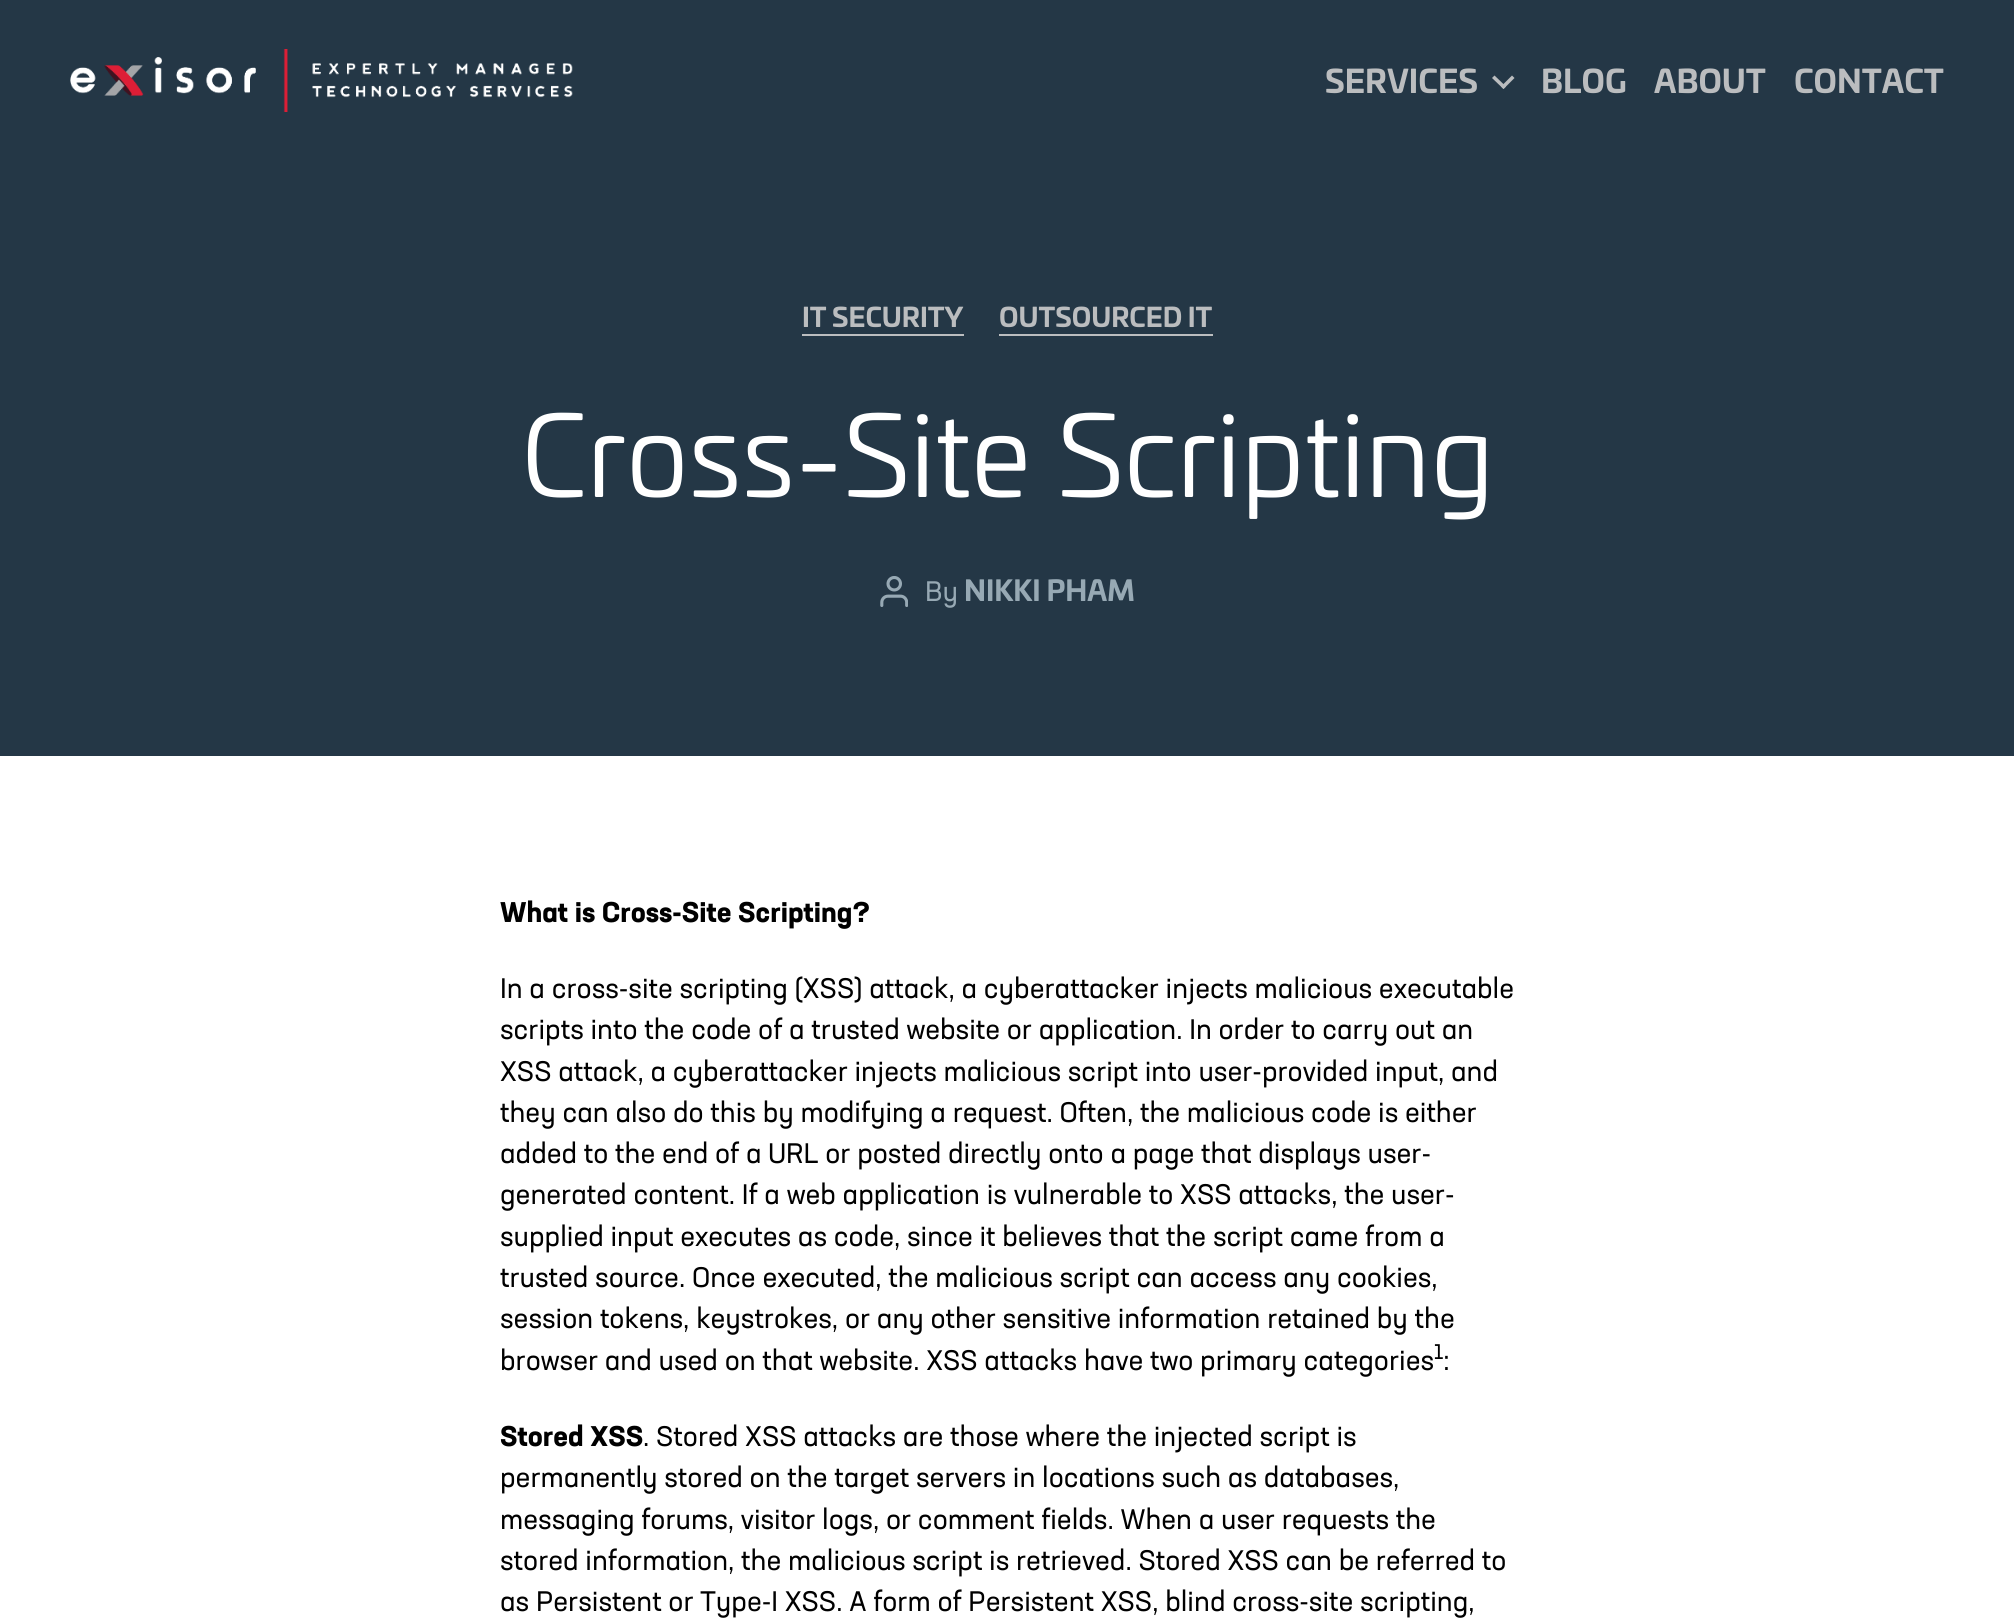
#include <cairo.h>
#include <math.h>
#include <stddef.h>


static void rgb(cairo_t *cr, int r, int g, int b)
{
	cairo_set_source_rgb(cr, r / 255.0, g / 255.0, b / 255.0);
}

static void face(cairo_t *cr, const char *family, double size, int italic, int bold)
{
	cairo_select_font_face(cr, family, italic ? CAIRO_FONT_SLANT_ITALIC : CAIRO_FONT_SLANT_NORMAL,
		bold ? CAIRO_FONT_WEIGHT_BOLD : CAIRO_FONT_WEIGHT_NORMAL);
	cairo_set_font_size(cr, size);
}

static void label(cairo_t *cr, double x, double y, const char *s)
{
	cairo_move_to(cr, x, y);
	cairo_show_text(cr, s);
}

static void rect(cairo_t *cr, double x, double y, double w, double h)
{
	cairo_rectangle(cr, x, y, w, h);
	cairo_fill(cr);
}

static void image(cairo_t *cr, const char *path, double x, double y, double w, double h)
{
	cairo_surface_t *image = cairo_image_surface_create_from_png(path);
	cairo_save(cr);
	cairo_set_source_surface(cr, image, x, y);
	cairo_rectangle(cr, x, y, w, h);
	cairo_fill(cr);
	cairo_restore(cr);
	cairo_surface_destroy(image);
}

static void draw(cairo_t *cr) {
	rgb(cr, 255, 255, 255);
	cairo_paint(cr);
	rgb(cr, 36, 55, 70);
	rect(cr, 0, 0, 2014, 756);
	image(cr, "image0.png", 70, 49, 503, 63);
	face(cr, "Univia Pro", 31.5, 0, 1);
	rgb(cr, 187, 189, 191);
	label(cr, 1325, 93, "SERVICES");
	cairo_new_path(cr);
	cairo_move_to(cr, 1492, 78);
	cairo_line_to(cr, 1494.5, 75.5);
	cairo_line_to(cr, 1506, 86.5);
	cairo_line_to(cr, 1503.5, 89);
	cairo_close_path(cr);
	cairo_fill(cr);
	cairo_new_path(cr);
	cairo_move_to(cr, 1501, 86.5);
	cairo_line_to(cr, 1512, 75.5);
	cairo_line_to(cr, 1514.5, 78);
	cairo_line_to(cr, 1503.5, 89);
	cairo_close_path(cr);
	cairo_fill(cr);
	label(cr, 1541, 93, "BLOG");
	label(cr, 1654, 93, "ABOUT");
	label(cr, 1794, 93, "CONTACT");
	rect(cr, 802, 334, 162, 2);
	face(cr, "Univia Pro", 26.25, 0, 1);
	label(cr, 802, 327, "IT SECURITY");
	rect(cr, 999, 334, 214, 2);
	label(cr, 999, 327, "OUTSOURCED IT");
	face(cr, "Univia Pro", 112, 0, 0);
	rgb(cr, 255, 255, 255);
	label(cr, 521, 497, "Cross-Site Scripting");
	image(cr, "image1.png", 880, 576, 28, 31);
	face(cr, "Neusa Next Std", 28, 0, 0);
	rgb(cr, 151, 169, 180);
	label(cr, 925, 601, "By");
	face(cr, "Univia Pro", 28, 0, 1);
	label(cr, 964, 601, "NIKKI PHAM");
	face(cr, "Neusa Next Std", 28, 0, 1);
	rgb(cr, 0, 0, 0);
	label(cr, 500, 922, "What is Cross-Site Scripting?");
	face(cr, "Neusa Next Std", 28, 0, 0);
	label(cr, 500, 998, "In a cross-site scripting (XSS) attack, a cyberattacker injects malicious executable");
	label(cr, 500, 1039, "scripts into the code of a trusted website or application. In order to carry out an");
	label(cr, 500, 1081, "XSS attack, a cyberattacker injects malicious script into user-provided input, and");
	label(cr, 500, 1122, "they can also do this by modifying a request. Often, the malicious code is either");
	label(cr, 500, 1163, "added to the end of a URL or posted directly onto a page that displays user-");
	label(cr, 500, 1204, "generated content. If a web application is vulnerable to XSS attacks, the user-");
	label(cr, 500, 1246, "supplied input executes as code, since it believes that the script came from a");
	label(cr, 500, 1287, "trusted source. Once executed, the malicious script can access any cookies,");
	label(cr, 500, 1328, "session tokens, keystrokes, or any other sensitive information retained by the");
	label(cr, 500, 1370, "browser and used on that website. XSS attacks have two primary categories");
	face(cr, "Neusa Next Std", 21, 0, 0);
	label(cr, 1434, 1359, "1");
	face(cr, "Neusa Next Std", 28, 0, 0);
	label(cr, 1443, 1370, ":");
	face(cr, "Neusa Next Std", 28, 0, 1);
	label(cr, 500, 1446, "Stored XSS");
	face(cr, "Neusa Next Std", 28, 0, 0);
	label(cr, 643, 1446, ". Stored XSS attacks are those where the injected script is");
	label(cr, 500, 1487, "permanently stored on the target servers in locations such as databases,");
	label(cr, 500, 1529, "messaging forums, visitor logs, or comment fields. When a user requests the");
	label(cr, 500, 1570, "stored information, the malicious script is retrieved. Stored XSS can be referred to");
	label(cr, 500, 1611, "as Persistent or Type-I XSS. A form of Persistent XSS, blind cross-site scripting,");
}

int main(void) {
	cairo_surface_t *surface = cairo_image_surface_create(CAIRO_FORMAT_RGB24, 2014, 1619);
	cairo_t *cr = cairo_create(surface);
	cairo_font_options_t *options = cairo_font_options_create();
	cairo_font_options_set_hint_metrics(options, CAIRO_HINT_METRICS_OFF);
	cairo_font_options_set_hint_style(options, CAIRO_HINT_STYLE_NONE);
	cairo_set_font_options(cr, options);
	cairo_set_miter_limit(cr, 4);
	draw(cr);
	cairo_surface_write_to_png(surface, "render.png");
	cairo_font_options_destroy(options);
	cairo_destroy(cr);
	cairo_surface_destroy(surface);
	return 0;
}
